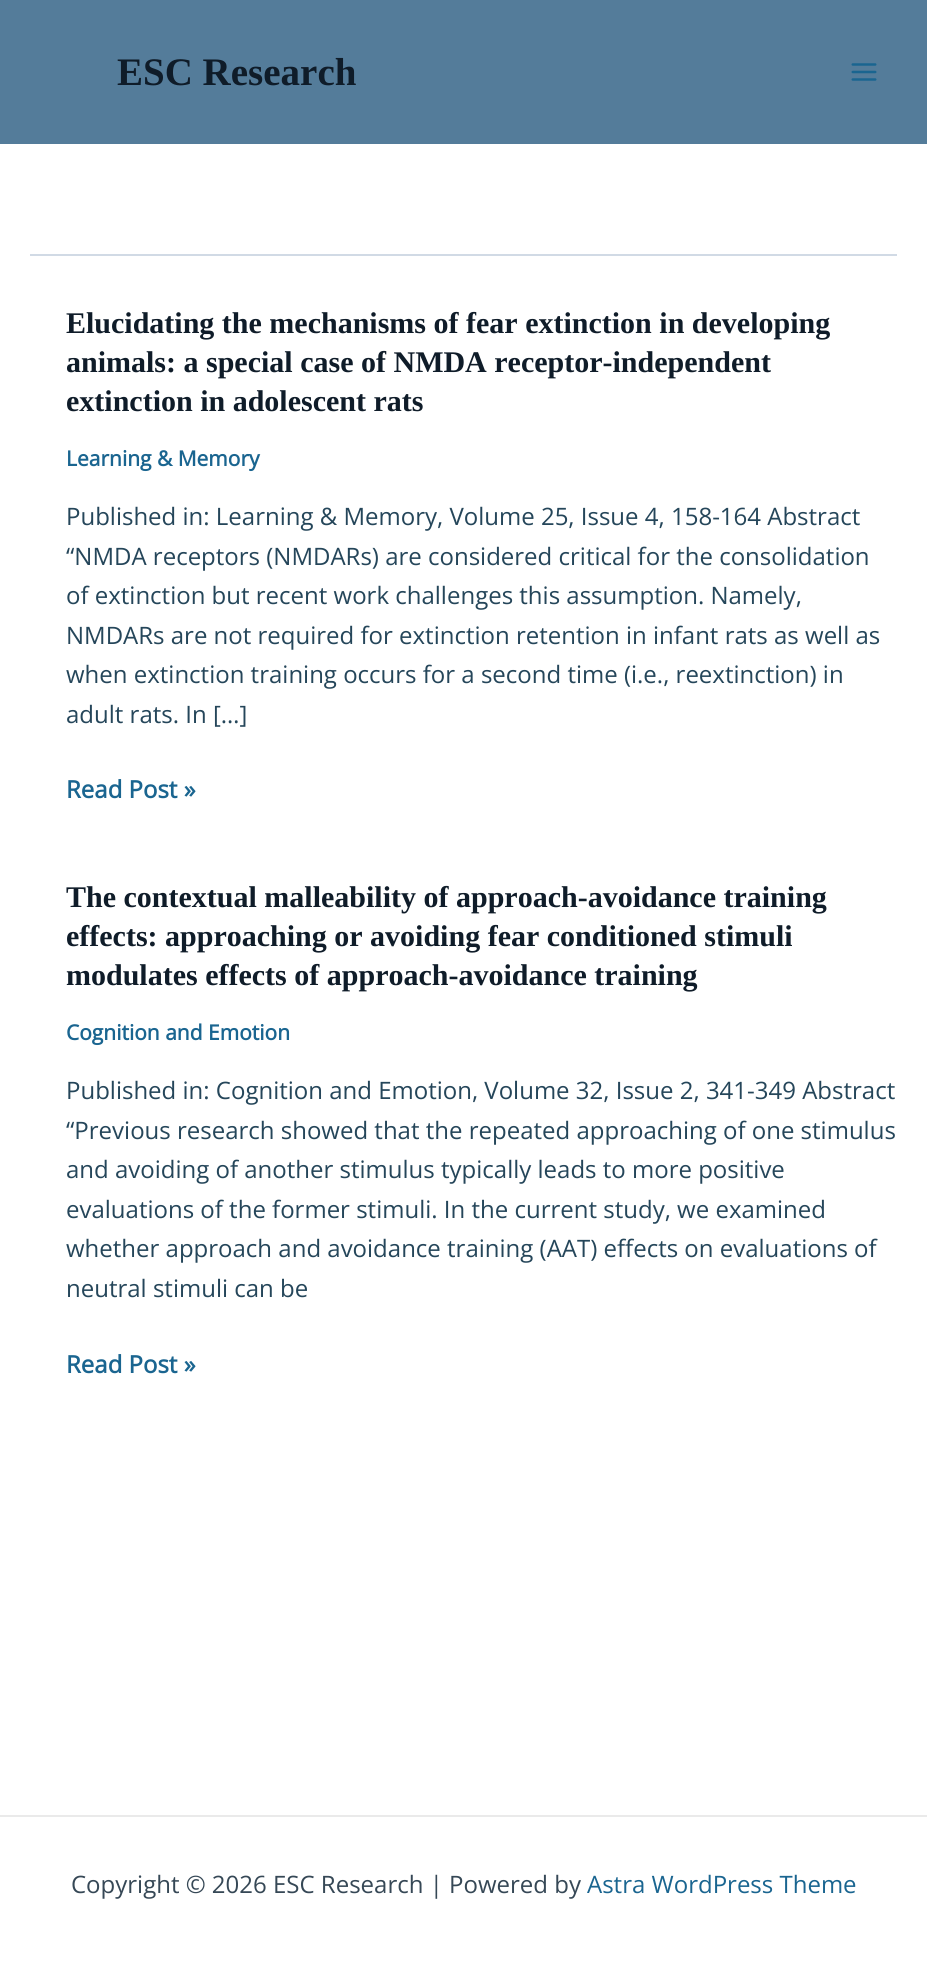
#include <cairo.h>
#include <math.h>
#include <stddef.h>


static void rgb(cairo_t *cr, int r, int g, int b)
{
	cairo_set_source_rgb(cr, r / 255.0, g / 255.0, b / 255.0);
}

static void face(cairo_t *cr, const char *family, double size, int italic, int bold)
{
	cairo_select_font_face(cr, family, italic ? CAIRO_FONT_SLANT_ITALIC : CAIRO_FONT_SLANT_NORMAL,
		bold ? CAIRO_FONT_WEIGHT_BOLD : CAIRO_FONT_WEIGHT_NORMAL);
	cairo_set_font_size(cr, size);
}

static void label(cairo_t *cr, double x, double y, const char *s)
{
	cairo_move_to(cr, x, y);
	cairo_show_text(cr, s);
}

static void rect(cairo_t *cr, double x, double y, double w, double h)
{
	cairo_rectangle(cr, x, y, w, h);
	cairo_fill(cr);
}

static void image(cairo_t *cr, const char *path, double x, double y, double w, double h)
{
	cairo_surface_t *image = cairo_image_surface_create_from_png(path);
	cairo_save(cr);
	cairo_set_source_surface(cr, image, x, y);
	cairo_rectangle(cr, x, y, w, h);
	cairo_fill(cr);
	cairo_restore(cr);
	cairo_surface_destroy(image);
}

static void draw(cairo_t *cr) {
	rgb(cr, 255, 255, 255);
	cairo_paint(cr);
	cairo_set_source_rgba(cr, 0.29, 0.455, 0.58, 0.94);
	rect(cr, 0, 0, 927, 144);
	face(cr, "Liberation Serif", 39, 0, 1);
	rgb(cr, 15, 28, 41);
	label(cr, 117, 85, "ESC Research");
	image(cr, "image0.png", 851, 63, 26, 18);
	rgb(cr, 209, 218, 229);
	rect(cr, 30, 254, 867, 2);
	face(cr, "Liberation Serif", 30, 0, 1);
	rgb(cr, 15, 28, 41);
	label(cr, 66, 333, "Elucidating the mechanisms of fear extinction in developing");
	label(cr, 66, 372, "animals: a special case of NMDA receptor-independent");
	label(cr, 66, 411, "extinction in adolescent rats");
	face(cr, "Open Sans", 21, 0, 1);
	rgb(cr, 26, 101, 144);
	label(cr, 66, 466, "Learning & Memory");
	face(cr, "Open Sans", 24, 0, 0);
	rgb(cr, 37, 70, 90);
	label(cr, 66, 525, "Published in: Learning & Memory, Volume 25, Issue 4, 158-164 Abstract");
	label(cr, 66, 565, "“NMDA receptors (NMDARs) are considered critical for the consolidation");
	label(cr, 66, 604, "of extinction but recent work challenges this assumption. Namely,");
	label(cr, 66, 644, "NMDARs are not required for extinction retention in infant rats as well as");
	label(cr, 66, 683, "when extinction training occurs for a second time (i.e., reextinction) in");
	label(cr, 66, 723, "adult rats. In […]");
	face(cr, "Open Sans", 24, 0, 1);
	rgb(cr, 26, 101, 144);
	label(cr, 66, 798, "Read Post »");
	face(cr, "Liberation Serif", 30, 0, 1);
	rgb(cr, 15, 28, 41);
	label(cr, 66, 907, "The contextual malleability of approach-avoidance training");
	label(cr, 66, 946, "effects: approaching or avoiding fear conditioned stimuli");
	label(cr, 66, 985, "modulates effects of approach-avoidance training");
	face(cr, "Open Sans", 21, 0, 1);
	rgb(cr, 26, 101, 144);
	label(cr, 66, 1040, "Cognition and Emotion");
	face(cr, "Open Sans", 24, 0, 0);
	rgb(cr, 37, 70, 90);
	label(cr, 66, 1099, "Published in: Cognition and Emotion, Volume 32, Issue 2, 341-349 Abstract");
	label(cr, 66, 1139, "“Previous research showed that the repeated approaching of one stimulus");
	label(cr, 66, 1178, "and avoiding of another stimulus typically leads to more positive");
	label(cr, 66, 1218, "evaluations of the former stimuli. In the current study, we examined");
	label(cr, 66, 1257, "whether approach and avoidance training (AAT) effects on evaluations of");
	label(cr, 66, 1297, "neutral stimuli can be");
	face(cr, "Open Sans", 24, 0, 1);
	rgb(cr, 26, 101, 144);
	label(cr, 66, 1373, "Read Post »");
	rgb(cr, 234, 234, 234);
	rect(cr, 0, 1815, 927, 2);
	face(cr, "Open Sans", 24, 0, 0);
	rgb(cr, 54, 72, 86);
	label(cr, 71, 1893, "Copyright © 2026 ESC Research | Powered by");
	rgb(cr, 26, 101, 144);
	label(cr, 587, 1893, "Astra WordPress Theme");
}

int main(void) {
	cairo_surface_t *surface = cairo_image_surface_create(CAIRO_FORMAT_RGB24, 927, 1966);
	cairo_t *cr = cairo_create(surface);
	cairo_font_options_t *options = cairo_font_options_create();
	cairo_font_options_set_hint_metrics(options, CAIRO_HINT_METRICS_OFF);
	cairo_font_options_set_hint_style(options, CAIRO_HINT_STYLE_NONE);
	cairo_set_font_options(cr, options);
	cairo_set_miter_limit(cr, 4);
	draw(cr);
	cairo_surface_write_to_png(surface, "render.png");
	cairo_font_options_destroy(options);
	cairo_destroy(cr);
	cairo_surface_destroy(surface);
	return 0;
}
